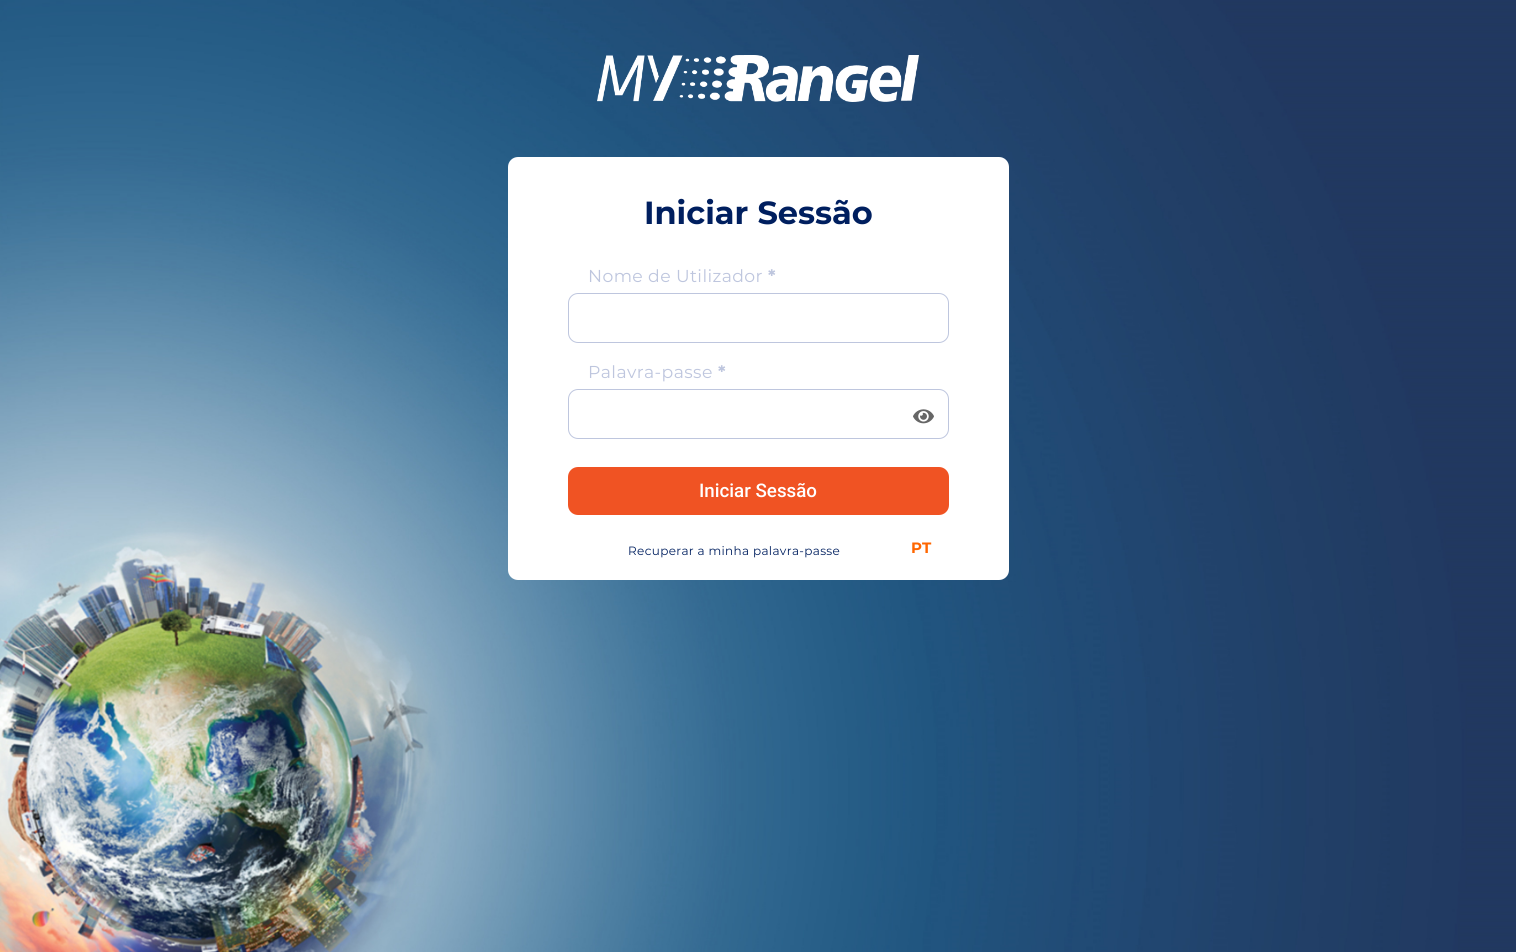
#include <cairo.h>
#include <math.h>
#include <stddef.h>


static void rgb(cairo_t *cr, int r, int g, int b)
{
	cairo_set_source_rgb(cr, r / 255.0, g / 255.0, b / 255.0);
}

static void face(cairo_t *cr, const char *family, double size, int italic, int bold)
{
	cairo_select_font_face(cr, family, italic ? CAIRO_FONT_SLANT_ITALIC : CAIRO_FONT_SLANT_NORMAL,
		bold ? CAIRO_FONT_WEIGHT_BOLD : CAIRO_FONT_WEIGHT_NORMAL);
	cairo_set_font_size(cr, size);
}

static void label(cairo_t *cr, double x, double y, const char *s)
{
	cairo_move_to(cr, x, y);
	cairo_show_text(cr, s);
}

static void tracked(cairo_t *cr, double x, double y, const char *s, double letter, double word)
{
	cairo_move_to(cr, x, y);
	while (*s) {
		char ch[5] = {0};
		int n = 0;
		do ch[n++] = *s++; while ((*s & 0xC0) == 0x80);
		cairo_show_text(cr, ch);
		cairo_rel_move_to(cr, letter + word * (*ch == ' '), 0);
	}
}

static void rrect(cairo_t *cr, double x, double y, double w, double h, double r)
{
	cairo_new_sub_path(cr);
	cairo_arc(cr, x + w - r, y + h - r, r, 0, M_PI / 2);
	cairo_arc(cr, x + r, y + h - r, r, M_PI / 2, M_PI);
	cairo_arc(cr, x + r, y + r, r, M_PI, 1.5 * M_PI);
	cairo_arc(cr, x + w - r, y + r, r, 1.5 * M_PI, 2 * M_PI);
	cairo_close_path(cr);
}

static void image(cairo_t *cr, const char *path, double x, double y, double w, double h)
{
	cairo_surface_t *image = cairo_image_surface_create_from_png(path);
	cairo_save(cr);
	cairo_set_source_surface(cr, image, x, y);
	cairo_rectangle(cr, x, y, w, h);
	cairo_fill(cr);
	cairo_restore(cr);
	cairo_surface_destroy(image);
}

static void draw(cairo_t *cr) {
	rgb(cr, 255, 255, 255);
	cairo_paint(cr);
	image(cr, "image0.png", 0, 0, 1516, 952);
	image(cr, "image1.png", 597, 55, 322, 47);
	rgb(cr, 255, 255, 255);
	rrect(cr, 508, 157, 501, 423, 10);
	cairo_fill(cr);
	face(cr, "Montserrat", 32, 0, 1);
	rgb(cr, 0, 31, 95);
	label(cr, 644, 224, "Iniciar Sessão");
	face(cr, "Montserrat", 17.25, 0, 0);
	rgb(cr, 190, 198, 222);
	tracked(cr, 588, 282, "Nome de Utilizador", 0.4, 0);
	face(cr, "Montserrat", 17.25, 0, 1);
	tracked(cr, 768, 282, "*", 0.4, 0);
	rrect(cr, 568.5, 293.5, 380, 49, 9.5);
	cairo_set_line_width(cr, 1);
	cairo_stroke(cr);
	face(cr, "Montserrat", 17.25, 0, 0);
	tracked(cr, 588, 378, "Palavra-passe", 0.4, 0);
	face(cr, "Montserrat", 17.25, 0, 1);
	tracked(cr, 718, 378, "*", 0.4, 0);
	rrect(cr, 568.5, 389.5, 380, 49, 9.5);
	cairo_stroke(cr);
	image(cr, "image2.png", 913, 409, 21, 15);
	rgb(cr, 240, 83, 35);
	rrect(cr, 568, 467, 381, 48, 10);
	cairo_fill(cr);
	face(cr, "Roboto Medium", 18.75, 0, 0);
	rgb(cr, 255, 255, 255);
	label(cr, 699, 497, "Iniciar Sessão");
	face(cr, "Montserrat", 12, 0, 0);
	rgb(cr, 0, 31, 95);
	tracked(cr, 628, 555, "Recuperar a minha palavra-passe", 0.35, 0);
	face(cr, "Montserrat", 15, 0, 1);
	rgb(cr, 255, 102, 0);
	label(cr, 911, 553, "PT");
}

int main(void) {
	cairo_surface_t *surface = cairo_image_surface_create(CAIRO_FORMAT_RGB24, 1516, 952);
	cairo_t *cr = cairo_create(surface);
	cairo_font_options_t *options = cairo_font_options_create();
	cairo_font_options_set_hint_metrics(options, CAIRO_HINT_METRICS_OFF);
	cairo_font_options_set_hint_style(options, CAIRO_HINT_STYLE_NONE);
	cairo_set_font_options(cr, options);
	cairo_set_miter_limit(cr, 4);
	draw(cr);
	cairo_surface_write_to_png(surface, "render.png");
	cairo_font_options_destroy(options);
	cairo_destroy(cr);
	cairo_surface_destroy(surface);
	return 0;
}
